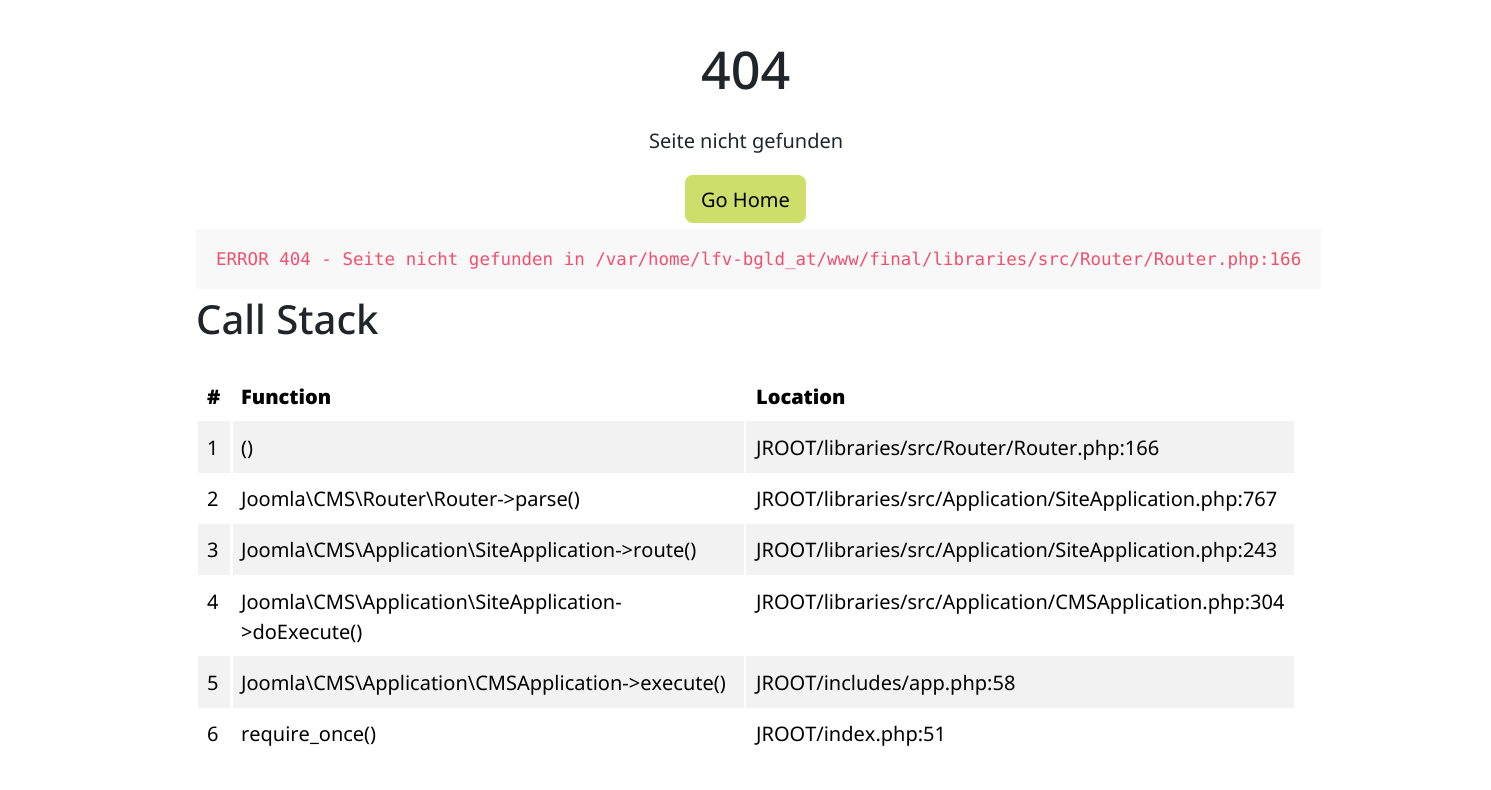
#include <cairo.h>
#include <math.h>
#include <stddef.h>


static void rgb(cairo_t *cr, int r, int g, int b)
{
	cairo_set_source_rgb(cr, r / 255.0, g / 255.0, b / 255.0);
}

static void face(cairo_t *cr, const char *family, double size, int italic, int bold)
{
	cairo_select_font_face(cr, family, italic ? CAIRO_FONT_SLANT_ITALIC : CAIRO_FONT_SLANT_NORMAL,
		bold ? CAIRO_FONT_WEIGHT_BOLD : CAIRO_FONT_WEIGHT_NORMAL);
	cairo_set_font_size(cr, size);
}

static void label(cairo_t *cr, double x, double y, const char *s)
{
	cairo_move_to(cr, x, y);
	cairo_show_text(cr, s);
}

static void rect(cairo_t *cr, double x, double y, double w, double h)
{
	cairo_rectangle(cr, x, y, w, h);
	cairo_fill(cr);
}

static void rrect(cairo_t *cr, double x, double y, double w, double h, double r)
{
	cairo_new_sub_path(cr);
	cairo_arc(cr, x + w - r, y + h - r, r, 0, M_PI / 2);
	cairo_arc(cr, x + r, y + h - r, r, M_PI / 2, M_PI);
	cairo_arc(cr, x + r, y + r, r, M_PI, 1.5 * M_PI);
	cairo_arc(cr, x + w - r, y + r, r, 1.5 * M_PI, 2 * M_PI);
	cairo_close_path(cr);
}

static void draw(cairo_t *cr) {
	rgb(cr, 255, 255, 255);
	cairo_paint(cr);
	face(cr, "Noto Sans Medium", 52, 0, 0);
	rgb(cr, 33, 37, 41);
	label(cr, 701, 89, "404");
	face(cr, "Noto Sans", 20, 0, 0);
	label(cr, 649, 148, "Seite nicht gefunden");
	rgb(cr, 205, 222, 107);
	rrect(cr, 685.5, 175.5, 120, 47, 7.5);
	cairo_fill_preserve(cr);
	cairo_set_line_width(cr, 1);
	cairo_stroke(cr);
	rgb(cr, 0, 0, 0);
	label(cr, 701, 207, "Go Home");
	rgb(cr, 248, 248, 248);
	rect(cr, 196, 229, 1125, 60);
	face(cr, "DejaVu Sans Mono", 17.5, 0, 0);
	rgb(cr, 240, 80, 110);
	label(cr, 216, 265, "ERROR 404 - Seite nicht gefunden in /var/home/lfv-bgld_at/www/final/libraries/src/Router/Router.php:166");
	face(cr, "Noto Sans Medium", 40, 0, 0);
	rgb(cr, 33, 37, 41);
	label(cr, 196, 334, "Call Stack");
	face(cr, "Noto Sans Black", 20, 0, 0);
	rgb(cr, 0, 0, 0);
	label(cr, 207, 404, "#");
	label(cr, 241, 404, "Function");
	label(cr, 756, 404, "Location");
	rgb(cr, 242, 242, 242);
	rect(cr, 198, 421, 32, 52);
	face(cr, "Noto Sans", 20, 0, 0);
	rgb(cr, 0, 0, 0);
	label(cr, 207, 455, "1");
	rgb(cr, 242, 242, 242);
	rect(cr, 233, 421, 511, 52);
	rgb(cr, 0, 0, 0);
	label(cr, 241, 455, "()");
	rgb(cr, 242, 242, 242);
	rect(cr, 746, 421, 548, 52);
	rgb(cr, 0, 0, 0);
	label(cr, 756, 455, "JROOT/libraries/src/Router/Router.php:166");
	label(cr, 207, 506, "2");
	label(cr, 241, 506, "Joomla\\CMS\\Router\\Router->parse()");
	label(cr, 756, 506, "JROOT/libraries/src/Application/SiteApplication.php:767");
	rgb(cr, 242, 242, 242);
	rect(cr, 198, 524, 32, 51);
	rgb(cr, 0, 0, 0);
	label(cr, 207, 557, "3");
	rgb(cr, 242, 242, 242);
	rect(cr, 233, 524, 511, 51);
	rgb(cr, 0, 0, 0);
	label(cr, 241, 557, "Joomla\\CMS\\Application\\SiteApplication->route()");
	rgb(cr, 242, 242, 242);
	rect(cr, 746, 524, 548, 51);
	rgb(cr, 0, 0, 0);
	label(cr, 756, 557, "JROOT/libraries/src/Application/SiteApplication.php:243");
	label(cr, 207, 609, "4");
	label(cr, 241, 609, "Joomla\\CMS\\Application\\SiteApplication-");
	label(cr, 241, 639, ">doExecute()");
	label(cr, 756, 609, "JROOT/libraries/src/Application/CMSApplication.php:304");
	rgb(cr, 242, 242, 242);
	rect(cr, 198, 656, 32, 52);
	rgb(cr, 0, 0, 0);
	label(cr, 207, 690, "5");
	rgb(cr, 242, 242, 242);
	rect(cr, 233, 656, 511, 52);
	rgb(cr, 0, 0, 0);
	label(cr, 241, 690, "Joomla\\CMS\\Application\\CMSApplication->execute()");
	rgb(cr, 242, 242, 242);
	rect(cr, 746, 656, 548, 52);
	rgb(cr, 0, 0, 0);
	label(cr, 756, 690, "JROOT/includes/app.php:58");
	label(cr, 207, 741, "6");
	label(cr, 241, 741, "require_once()");
	label(cr, 756, 741, "JROOT/index.php:51");
}

int main(void) {
	cairo_surface_t *surface = cairo_image_surface_create(CAIRO_FORMAT_RGB24, 1491, 790);
	cairo_t *cr = cairo_create(surface);
	cairo_font_options_t *options = cairo_font_options_create();
	cairo_font_options_set_hint_metrics(options, CAIRO_HINT_METRICS_OFF);
	cairo_font_options_set_hint_style(options, CAIRO_HINT_STYLE_NONE);
	cairo_set_font_options(cr, options);
	cairo_set_miter_limit(cr, 4);
	draw(cr);
	cairo_surface_write_to_png(surface, "render.png");
	cairo_font_options_destroy(options);
	cairo_destroy(cr);
	cairo_surface_destroy(surface);
	return 0;
}
